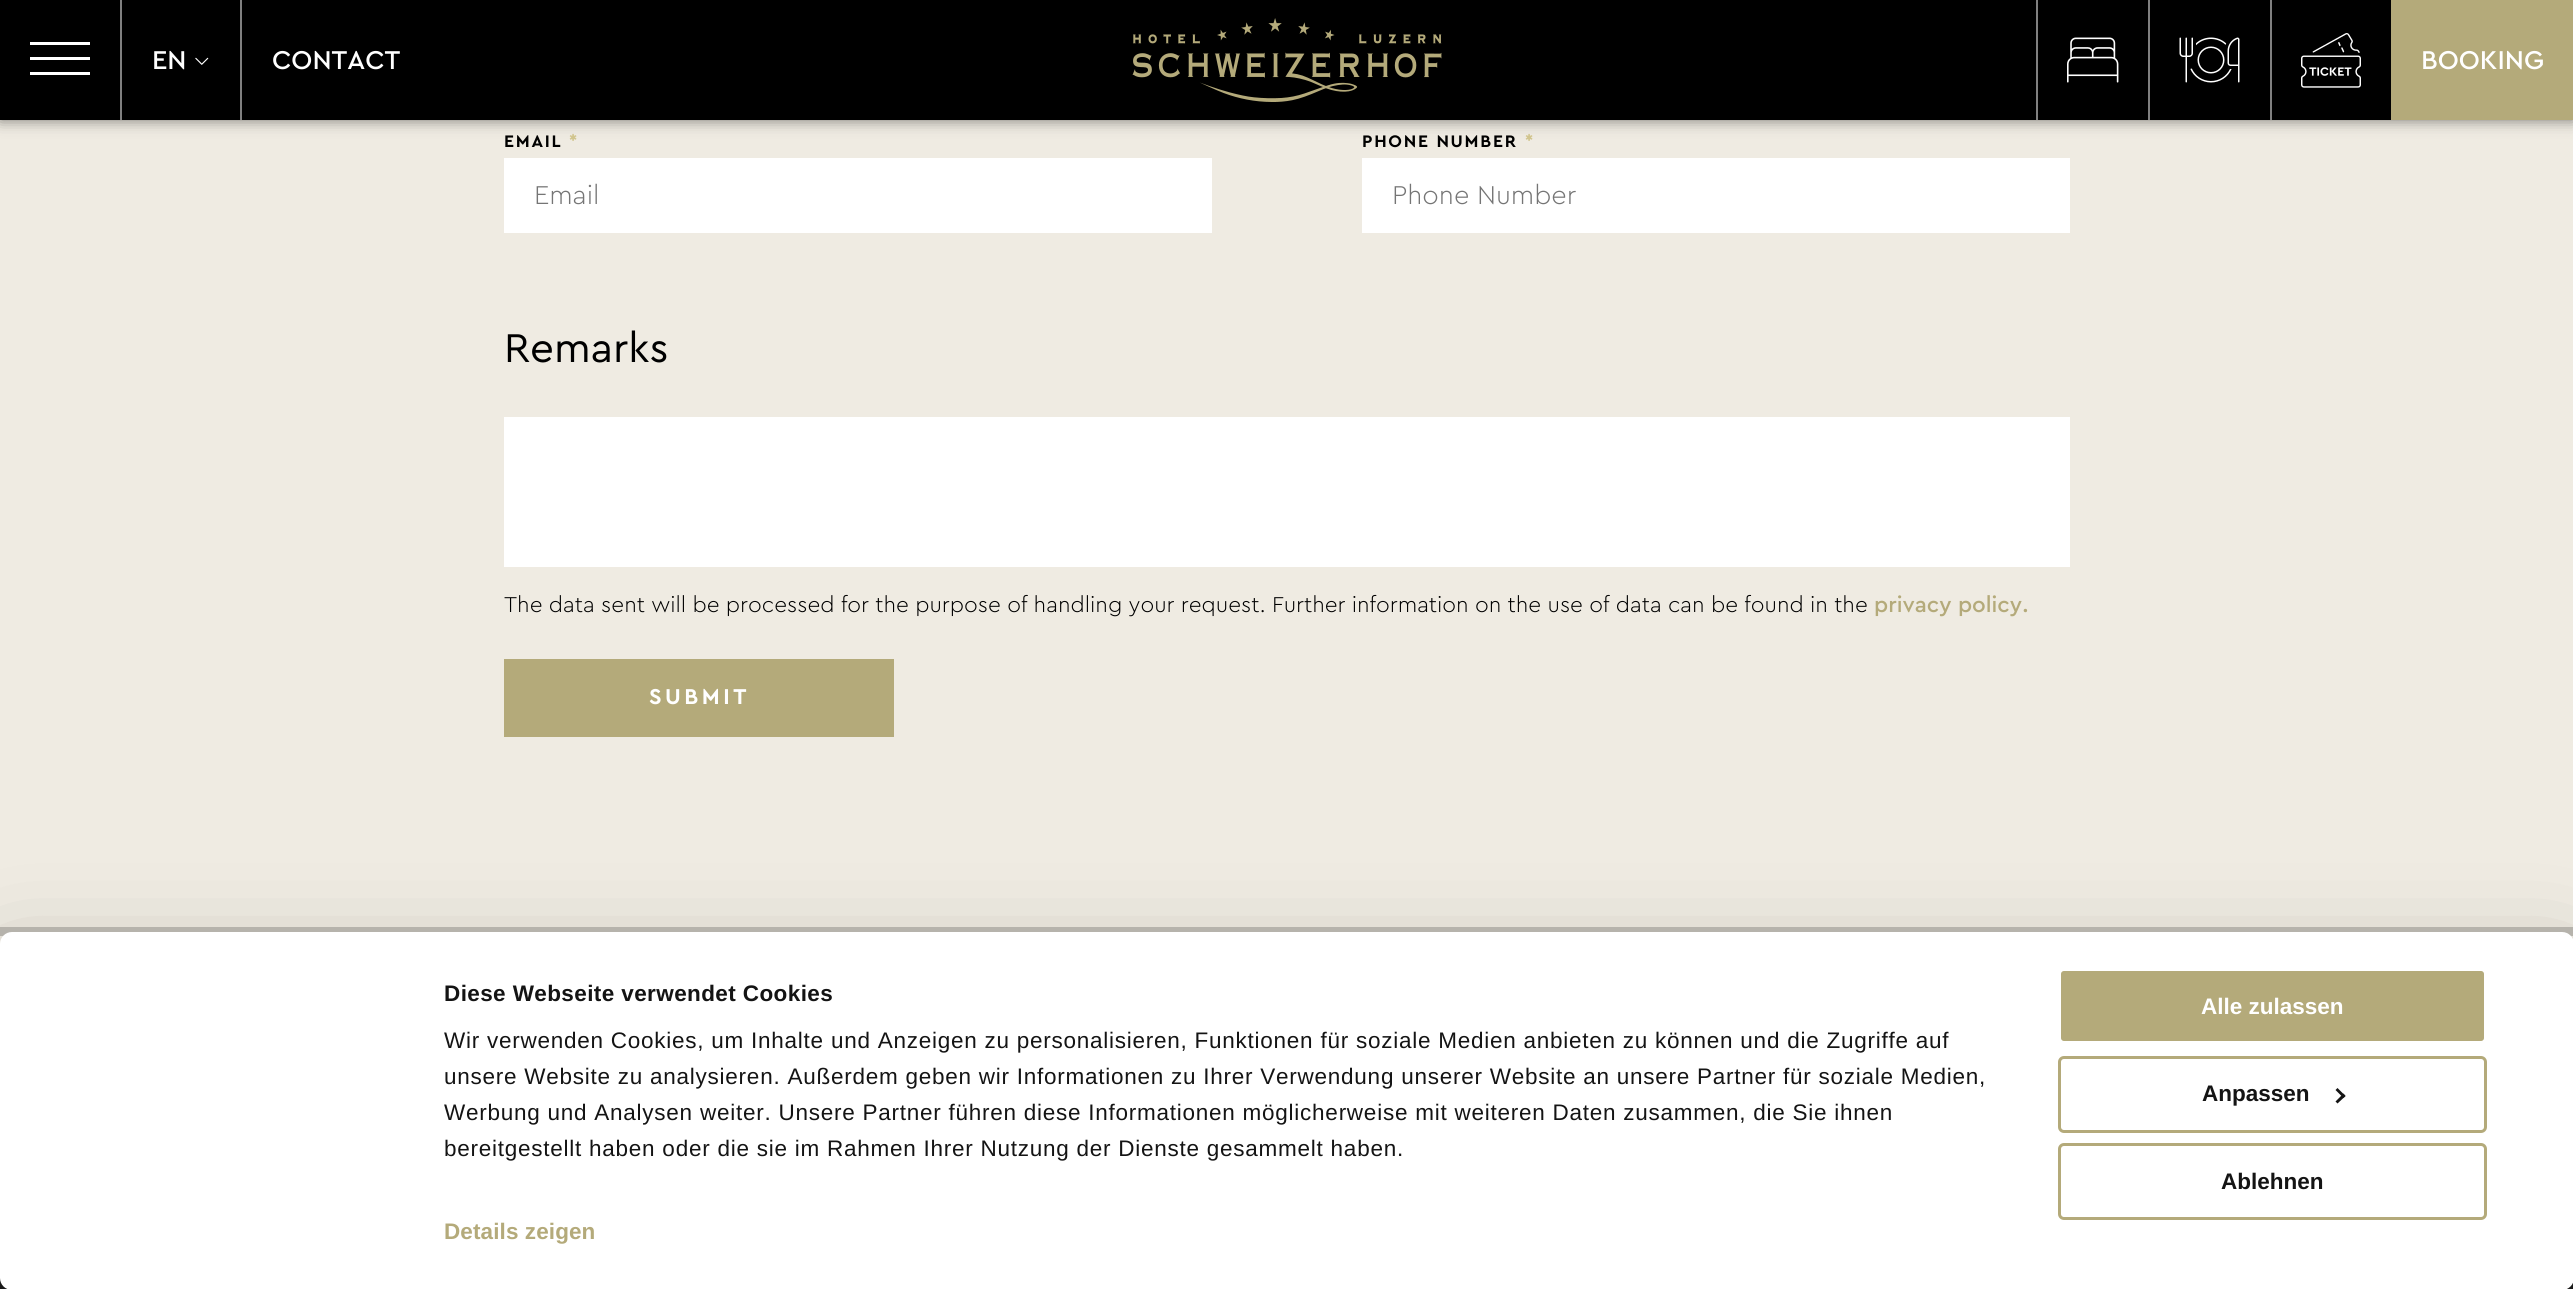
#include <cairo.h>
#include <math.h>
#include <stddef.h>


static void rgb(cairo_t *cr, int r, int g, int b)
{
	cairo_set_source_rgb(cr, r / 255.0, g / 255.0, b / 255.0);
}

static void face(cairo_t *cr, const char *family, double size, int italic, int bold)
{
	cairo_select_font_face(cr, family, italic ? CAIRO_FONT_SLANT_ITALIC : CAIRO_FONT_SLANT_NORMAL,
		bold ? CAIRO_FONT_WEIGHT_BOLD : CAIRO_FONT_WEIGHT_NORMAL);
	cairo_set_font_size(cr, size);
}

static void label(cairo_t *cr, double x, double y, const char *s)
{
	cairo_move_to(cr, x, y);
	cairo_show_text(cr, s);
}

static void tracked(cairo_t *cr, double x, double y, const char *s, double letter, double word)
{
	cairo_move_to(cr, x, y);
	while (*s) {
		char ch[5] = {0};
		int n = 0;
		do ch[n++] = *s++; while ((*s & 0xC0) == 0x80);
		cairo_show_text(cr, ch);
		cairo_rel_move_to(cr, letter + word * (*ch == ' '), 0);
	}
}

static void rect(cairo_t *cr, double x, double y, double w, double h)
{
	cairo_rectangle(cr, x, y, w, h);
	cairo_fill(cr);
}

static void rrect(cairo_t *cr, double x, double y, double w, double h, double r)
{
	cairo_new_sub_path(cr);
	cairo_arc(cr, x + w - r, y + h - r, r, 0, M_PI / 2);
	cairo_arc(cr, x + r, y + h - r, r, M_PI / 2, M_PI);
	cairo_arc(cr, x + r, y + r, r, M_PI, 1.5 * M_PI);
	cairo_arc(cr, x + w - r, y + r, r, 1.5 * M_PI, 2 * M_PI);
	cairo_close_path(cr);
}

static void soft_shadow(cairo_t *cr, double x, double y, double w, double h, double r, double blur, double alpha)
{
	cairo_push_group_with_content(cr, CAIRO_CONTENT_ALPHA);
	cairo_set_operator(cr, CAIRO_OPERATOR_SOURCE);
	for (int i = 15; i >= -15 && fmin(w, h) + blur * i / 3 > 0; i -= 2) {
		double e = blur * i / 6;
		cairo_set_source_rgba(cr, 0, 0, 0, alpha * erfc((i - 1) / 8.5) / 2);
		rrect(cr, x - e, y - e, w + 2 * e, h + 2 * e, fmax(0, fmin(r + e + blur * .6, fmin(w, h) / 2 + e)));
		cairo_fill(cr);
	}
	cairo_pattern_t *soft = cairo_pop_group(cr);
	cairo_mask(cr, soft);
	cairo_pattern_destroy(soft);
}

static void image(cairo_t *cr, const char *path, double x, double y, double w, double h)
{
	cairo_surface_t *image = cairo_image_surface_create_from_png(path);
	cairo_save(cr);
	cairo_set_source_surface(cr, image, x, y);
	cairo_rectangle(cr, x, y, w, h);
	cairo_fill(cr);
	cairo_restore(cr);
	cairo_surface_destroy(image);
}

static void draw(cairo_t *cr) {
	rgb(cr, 239, 235, 226);
	cairo_paint(cr);
	rgb(cr, 0, 0, 0);
	soft_shadow(cr, 0, 0, 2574, 120, 0, 7.5, 0.5);
	rgb(cr, 0, 0, 0);
	rect(cr, 0, 0, 2391, 120);
	rgb(cr, 255, 255, 255);
	rect(cr, 30, 57, 60, 3);
	rect(cr, 30, 42, 60, 3);
	rect(cr, 30, 72, 60, 3);
	rgb(cr, 128, 128, 128);
	rect(cr, 120, 0, 2, 120);
	face(cr, "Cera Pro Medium", 27, 0, 0);
	rgb(cr, 255, 255, 255);
	label(cr, 152, 69, "EN");
	image(cr, "image0.png", 195, 57, 14, 8);
	rgb(cr, 128, 128, 128);
	rect(cr, 240, 0, 2, 120);
	rgb(cr, 255, 255, 255);
	label(cr, 272, 69, "CONTACT");
	image(cr, "image1.png", 1132, 18, 310, 84);
	rgb(cr, 128, 128, 128);
	rect(cr, 2036, 0, 2, 120);
	image(cr, "image2.png", 2067, 37, 52, 46);
	rect(cr, 2148, 0, 2, 120);
	image(cr, "image3.png", 2179, 37, 61, 46);
	rect(cr, 2270, 0, 2, 120);
	image(cr, "image4.png", 2301, 33, 60, 55);
	rgb(cr, 180, 170, 122);
	rect(cr, 2391, 0, 182, 120);
	rgb(cr, 255, 255, 255);
	label(cr, 2421, 69, "BOOKING");
	face(cr, "Cera Pro", 17.5, 0, 1);
	rgb(cr, 0, 0, 0);
	tracked(cr, 504, 147, "EMAIL", 1.75, 0);
	rgb(cr, 209, 197, 142);
	tracked(cr, 569, 147, "*", 1.75, 0);
	rgb(cr, 255, 255, 255);
	rect(cr, 504, 158, 708, 75);
	face(cr, "Cera Pro Light", 27, 0, 0);
	rgb(cr, 117, 117, 117);
	label(cr, 534, 204, "Email");
	face(cr, "Cera Pro", 17.5, 0, 1);
	rgb(cr, 0, 0, 0);
	tracked(cr, 1362, 147, "PHONE NUMBER", 1.75, 0);
	rgb(cr, 209, 197, 142);
	tracked(cr, 1525, 147, "*", 1.75, 0);
	rgb(cr, 255, 255, 255);
	rect(cr, 1362, 158, 708, 75);
	face(cr, "Cera Pro Light", 27, 0, 0);
	rgb(cr, 117, 117, 117);
	label(cr, 1392, 204, "Phone Number");
	face(cr, "Cera Pro", 42, 0, 0);
	rgb(cr, 0, 0, 0);
	label(cr, 504, 362, "Remarks");
	rgb(cr, 255, 255, 255);
	rect(cr, 504, 417, 1566, 150);
	face(cr, "Cera Pro Light", 22.5, 0, 0);
	rgb(cr, 0, 0, 0);
	label(cr, 504, 612, "The data sent will be processed for the purpose of handling your request. Further information on the use of data can be found in the");
	face(cr, "Cera Pro Medium", 22.5, 0, 0);
	rgb(cr, 180, 170, 122);
	label(cr, 1874, 612, "privacy policy.");
	rect(cr, 504, 659, 390, 78);
	face(cr, "Cera Pro", 22.5, 0, 1);
	rgb(cr, 255, 255, 255);
	tracked(cr, 649, 704, "SUBMIT", 3.5, 0);
	rgb(cr, 31, 31, 31);
	rect(cr, 0, 1278, 2573, 11);
	rgb(cr, 191, 188, 181);
	rect(cr, 0, 927, 2573, 9);
	rgb(cr, 0, 0, 0);
	soft_shadow(cr, 0, 977, 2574, 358, 12, 52.5, 0.3);
	rgb(cr, 255, 255, 255);
	rrect(cr, 0, 932, 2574, 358, 12);
	cairo_fill(cr);
	face(cr, "Liberation Sans", 22.5, 0, 1);
	rgb(cr, 20, 20, 20);
	tracked(cr, 444, 1001, "Diese Webseite verwendet Cookies", 0.4, 0);
	face(cr, "Liberation Sans", 22.5, 0, 0);
	tracked(cr, 444, 1048, "Wir verwenden Cookies, um Inhalte und Anzeigen zu personalisieren, Funktionen für soziale Medien anbieten zu können und die Zugriffe auf", 0.75, 0);
	tracked(cr, 444, 1084, "unsere Website zu analysieren. Außerdem geben wir Informationen zu Ihrer Verwendung unserer Website an unsere Partner für soziale Medien,", 0.75, 0);
	tracked(cr, 444, 1120, "Werbung und Analysen weiter. Unsere Partner führen diese Informationen möglicherweise mit weiteren Daten zusammen, die Sie ihnen", 0.75, 0);
	tracked(cr, 444, 1156, "bereitgestellt haben oder die sie im Rahmen Ihrer Nutzung der Dienste gesammelt haben.", 0.75, 0);
	face(cr, "Liberation Sans", 22.5, 0, 1);
	rgb(cr, 180, 170, 122);
	tracked(cr, 444, 1239, "Details zeigen", 0.1, 0);
	rrect(cr, 2059.5, 969.5, 426, 73, 4.5);
	cairo_fill_preserve(cr);
	rgb(cr, 255, 255, 255);
	cairo_set_line_width(cr, 3);
	cairo_stroke(cr);
	label(cr, 2201, 1014, "Alle zulassen");
	rrect(cr, 2059.5, 1057.5, 426, 74, 4.5);
	rgb(cr, 180, 170, 122);
	cairo_stroke(cr);
	rgb(cr, 20, 20, 20);
	label(cr, 2202, 1101, "Anpassen");
	cairo_new_path(cr);
	cairo_move_to(cr, 2337.5, 1088);
	cairo_line_to(cr, 2345.5, 1096);
	cairo_line_to(cr, 2343.5, 1098);
	cairo_line_to(cr, 2335.5, 1090);
	cairo_close_path(cr);
	cairo_fill(cr);
	cairo_new_path(cr);
	cairo_move_to(cr, 2343.5, 1093.5);
	cairo_line_to(cr, 2345.5, 1096);
	cairo_line_to(cr, 2337.5, 1103.5);
	cairo_line_to(cr, 2335.5, 1101.5);
	cairo_close_path(cr);
	cairo_fill(cr);
	rrect(cr, 2059.5, 1144.5, 426, 74, 4.5);
	rgb(cr, 180, 170, 122);
	cairo_stroke(cr);
	rgb(cr, 20, 20, 20);
	label(cr, 2221, 1189, "Ablehnen");
}

int main(void) {
	cairo_surface_t *surface = cairo_image_surface_create(CAIRO_FORMAT_RGB24, 2573, 1289);
	cairo_t *cr = cairo_create(surface);
	cairo_font_options_t *options = cairo_font_options_create();
	cairo_font_options_set_hint_metrics(options, CAIRO_HINT_METRICS_OFF);
	cairo_font_options_set_hint_style(options, CAIRO_HINT_STYLE_NONE);
	cairo_set_font_options(cr, options);
	cairo_set_miter_limit(cr, 4);
	draw(cr);
	cairo_surface_write_to_png(surface, "render.png");
	cairo_font_options_destroy(options);
	cairo_destroy(cr);
	cairo_surface_destroy(surface);
	return 0;
}
